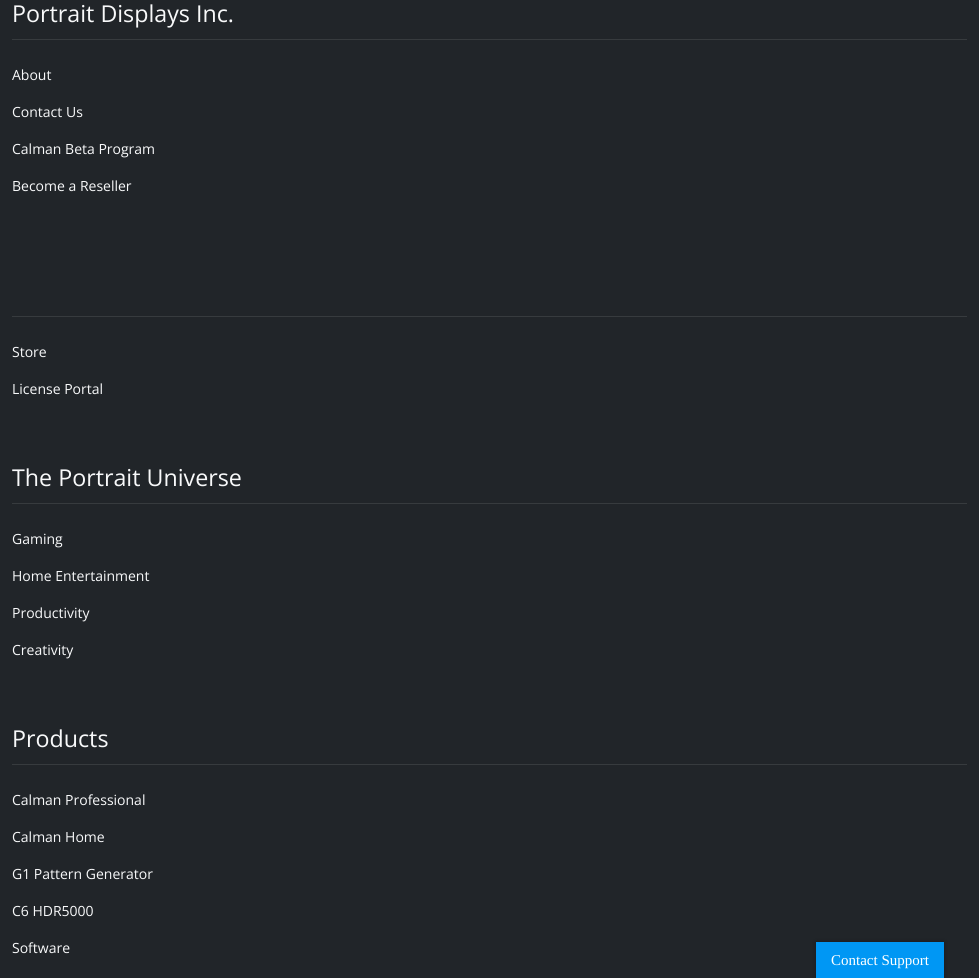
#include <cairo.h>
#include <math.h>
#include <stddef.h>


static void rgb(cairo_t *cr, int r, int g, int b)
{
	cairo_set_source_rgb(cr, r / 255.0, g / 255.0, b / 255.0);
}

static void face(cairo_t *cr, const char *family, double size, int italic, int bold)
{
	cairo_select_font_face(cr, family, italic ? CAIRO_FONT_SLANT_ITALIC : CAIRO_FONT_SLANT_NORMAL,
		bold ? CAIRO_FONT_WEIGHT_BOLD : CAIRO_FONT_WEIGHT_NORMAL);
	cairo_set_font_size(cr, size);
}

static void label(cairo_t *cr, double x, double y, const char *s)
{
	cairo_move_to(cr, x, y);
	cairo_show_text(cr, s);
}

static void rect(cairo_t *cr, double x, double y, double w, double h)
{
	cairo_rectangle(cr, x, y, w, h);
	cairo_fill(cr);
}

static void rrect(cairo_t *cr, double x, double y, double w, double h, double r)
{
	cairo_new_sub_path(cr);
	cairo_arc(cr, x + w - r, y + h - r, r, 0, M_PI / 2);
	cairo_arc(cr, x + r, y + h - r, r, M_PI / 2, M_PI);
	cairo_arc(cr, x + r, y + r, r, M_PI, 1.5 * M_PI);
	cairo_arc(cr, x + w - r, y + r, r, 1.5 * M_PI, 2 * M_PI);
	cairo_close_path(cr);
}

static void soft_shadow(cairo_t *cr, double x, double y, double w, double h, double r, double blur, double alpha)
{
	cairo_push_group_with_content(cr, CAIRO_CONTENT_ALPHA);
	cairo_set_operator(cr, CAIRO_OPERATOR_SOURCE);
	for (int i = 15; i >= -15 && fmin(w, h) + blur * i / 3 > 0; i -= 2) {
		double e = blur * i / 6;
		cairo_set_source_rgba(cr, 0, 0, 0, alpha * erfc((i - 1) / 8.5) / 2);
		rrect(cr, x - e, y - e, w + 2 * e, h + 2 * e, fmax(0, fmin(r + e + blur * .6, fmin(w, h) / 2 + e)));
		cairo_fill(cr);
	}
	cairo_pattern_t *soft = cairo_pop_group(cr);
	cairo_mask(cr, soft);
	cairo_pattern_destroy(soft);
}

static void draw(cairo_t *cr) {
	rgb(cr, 33, 37, 41);
	cairo_paint(cr);
	rgb(cr, 55, 59, 62);
	rect(cr, 12, 39, 955, 1);
	face(cr, "Open Sans", 23.25, 0, 0);
	rgb(cr, 248, 249, 250);
	label(cr, 12, 22, "Portrait Displays Inc.");
	face(cr, "Open Sans", 14, 0, 0);
	label(cr, 12, 80, "About");
	label(cr, 12, 117, "Contact Us");
	label(cr, 12, 154, "Calman Beta Program");
	label(cr, 12, 191, "Become a Reseller");
	rgb(cr, 55, 59, 62);
	rect(cr, 12, 316, 955, 1);
	rgb(cr, 248, 249, 250);
	label(cr, 12, 357, "Store");
	label(cr, 12, 394, "License Portal");
	rgb(cr, 55, 59, 62);
	rect(cr, 12, 503, 955, 1);
	face(cr, "Open Sans", 23.25, 0, 0);
	rgb(cr, 248, 249, 250);
	label(cr, 12, 486, "The Portrait Universe");
	face(cr, "Open Sans", 14, 0, 0);
	label(cr, 12, 544, "Gaming");
	label(cr, 12, 581, "Home Entertainment");
	label(cr, 12, 618, "Productivity");
	label(cr, 12, 655, "Creativity");
	rgb(cr, 55, 59, 62);
	rect(cr, 12, 764, 955, 1);
	face(cr, "Open Sans", 23.25, 0, 0);
	rgb(cr, 248, 249, 250);
	label(cr, 12, 747, "Products");
	face(cr, "Open Sans", 14, 0, 0);
	label(cr, 12, 805, "Calman Professional");
	label(cr, 12, 842, "Calman Home");
	label(cr, 12, 879, "G1 Pattern Generator");
	label(cr, 12, 916, "C6 HDR5000");
	label(cr, 12, 953, "Software");
	rgb(cr, 0, 0, 0);
	soft_shadow(cr, 816, 942, 128, 36, 0, 2.5, 0.3);
	rgb(cr, 0, 151, 244);
	rect(cr, 816, 942, 128, 36);
	face(cr, "Liberation Serif", 15, 0, 0);
	rgb(cr, 255, 255, 255);
	label(cr, 831, 965, "Contact Support");
}

int main(void) {
	cairo_surface_t *surface = cairo_image_surface_create(CAIRO_FORMAT_RGB24, 979, 978);
	cairo_t *cr = cairo_create(surface);
	cairo_font_options_t *options = cairo_font_options_create();
	cairo_font_options_set_hint_metrics(options, CAIRO_HINT_METRICS_OFF);
	cairo_font_options_set_hint_style(options, CAIRO_HINT_STYLE_NONE);
	cairo_set_font_options(cr, options);
	cairo_set_miter_limit(cr, 4);
	draw(cr);
	cairo_surface_write_to_png(surface, "render.png");
	cairo_font_options_destroy(options);
	cairo_destroy(cr);
	cairo_surface_destroy(surface);
	return 0;
}
